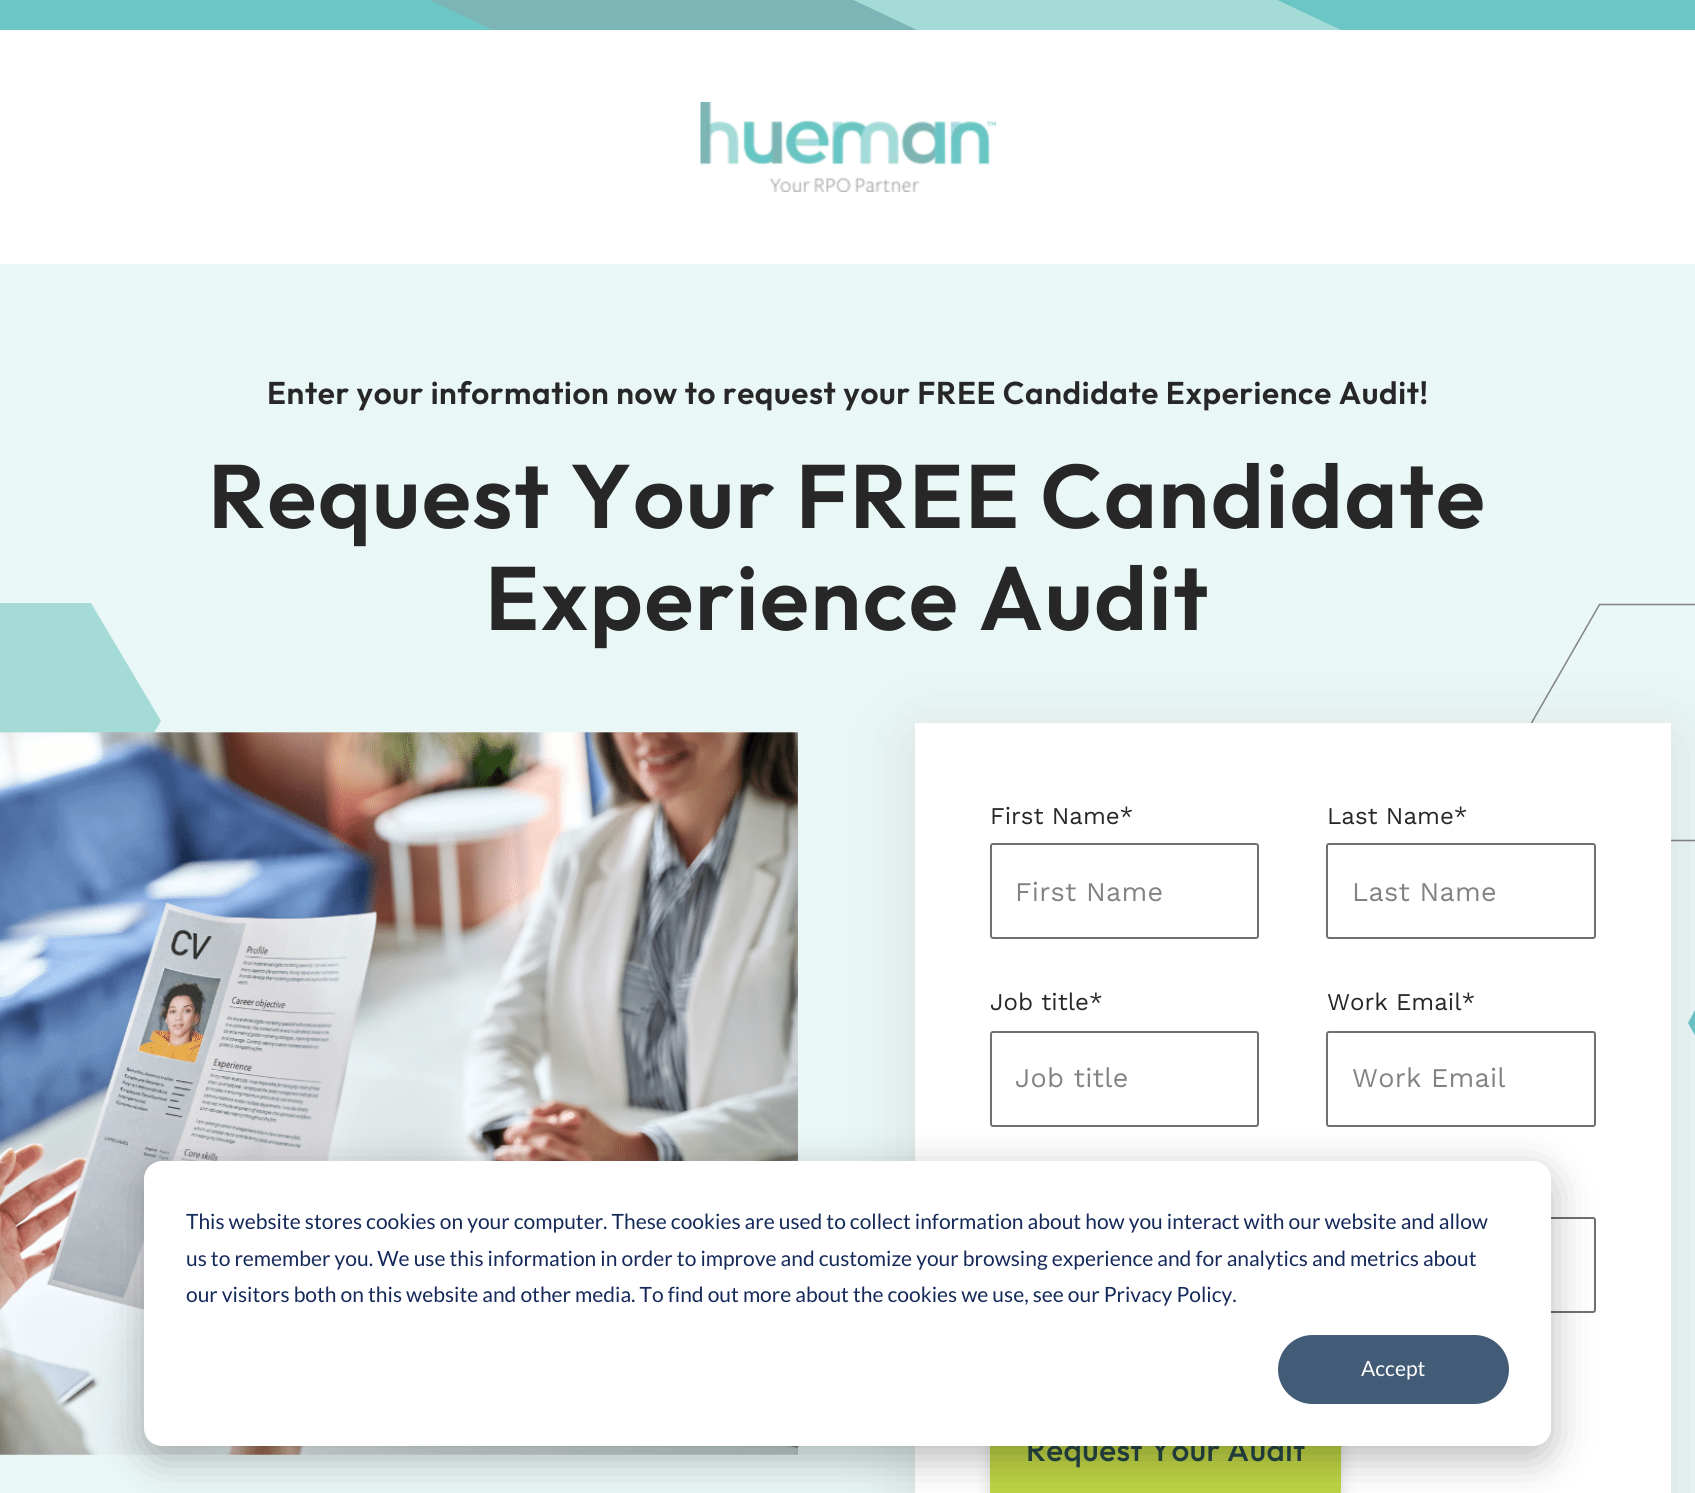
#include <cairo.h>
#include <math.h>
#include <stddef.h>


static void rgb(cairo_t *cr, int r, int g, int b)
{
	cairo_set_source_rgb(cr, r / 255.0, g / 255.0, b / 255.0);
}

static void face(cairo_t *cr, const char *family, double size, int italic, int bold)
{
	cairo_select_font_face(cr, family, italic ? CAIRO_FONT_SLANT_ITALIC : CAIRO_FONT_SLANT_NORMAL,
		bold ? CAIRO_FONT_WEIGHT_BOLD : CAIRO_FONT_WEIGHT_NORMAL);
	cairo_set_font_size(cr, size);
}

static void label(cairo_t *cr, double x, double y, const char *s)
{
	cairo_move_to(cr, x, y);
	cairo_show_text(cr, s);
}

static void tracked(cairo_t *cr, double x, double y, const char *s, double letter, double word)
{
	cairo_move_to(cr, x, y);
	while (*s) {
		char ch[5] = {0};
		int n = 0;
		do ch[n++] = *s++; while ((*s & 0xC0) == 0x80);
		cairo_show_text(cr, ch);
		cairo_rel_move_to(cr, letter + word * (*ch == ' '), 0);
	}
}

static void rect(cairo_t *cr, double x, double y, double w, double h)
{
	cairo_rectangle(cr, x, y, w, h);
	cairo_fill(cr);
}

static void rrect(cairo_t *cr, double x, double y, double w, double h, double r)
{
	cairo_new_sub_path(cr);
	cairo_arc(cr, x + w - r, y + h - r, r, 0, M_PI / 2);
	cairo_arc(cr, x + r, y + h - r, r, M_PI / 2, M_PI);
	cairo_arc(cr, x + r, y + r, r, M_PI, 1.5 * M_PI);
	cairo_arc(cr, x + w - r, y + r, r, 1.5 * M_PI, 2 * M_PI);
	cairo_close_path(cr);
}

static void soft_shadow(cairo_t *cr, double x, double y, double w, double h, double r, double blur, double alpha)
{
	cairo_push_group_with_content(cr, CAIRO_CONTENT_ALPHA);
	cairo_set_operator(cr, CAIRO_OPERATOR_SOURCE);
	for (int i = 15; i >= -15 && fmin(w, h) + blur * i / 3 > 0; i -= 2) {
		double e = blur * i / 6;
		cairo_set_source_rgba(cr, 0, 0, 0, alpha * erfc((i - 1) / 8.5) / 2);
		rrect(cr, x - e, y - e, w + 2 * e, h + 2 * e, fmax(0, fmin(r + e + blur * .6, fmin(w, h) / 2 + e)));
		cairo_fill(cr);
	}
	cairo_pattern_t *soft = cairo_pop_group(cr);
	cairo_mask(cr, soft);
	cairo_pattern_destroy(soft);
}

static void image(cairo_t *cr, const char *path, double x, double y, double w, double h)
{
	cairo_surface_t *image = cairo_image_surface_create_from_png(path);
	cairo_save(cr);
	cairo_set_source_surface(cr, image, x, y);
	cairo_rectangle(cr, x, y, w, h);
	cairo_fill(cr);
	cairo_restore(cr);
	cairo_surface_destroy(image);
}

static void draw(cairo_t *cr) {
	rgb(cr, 255, 255, 255);
	cairo_paint(cr);
	rgb(cr, 109, 198, 198);
	rect(cr, 0, 0, 423, 30);
	rgb(cr, 124, 181, 181);
	rect(cr, 429, 0, 418, 30);
	cairo_save(cr);
	cairo_rectangle(cr, 0, 0, 1695, 30);
	cairo_clip(cr);
	rgb(cr, 109, 198, 198);
	cairo_new_path(cr);
	cairo_move_to(cr, 374, -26);
	cairo_line_to(cr, 510, 38);
	cairo_line_to(cr, 497, 65);
	cairo_line_to(cr, 361, 1);
	cairo_close_path(cr);
	cairo_fill(cr);
	cairo_restore(cr);
	rgb(cr, 165, 219, 215);
	rect(cr, 853, 0, 418, 30);
	cairo_save(cr);
	cairo_rectangle(cr, 0, 0, 1695, 30);
	cairo_clip(cr);
	rgb(cr, 124, 181, 181);
	cairo_new_path(cr);
	cairo_move_to(cr, 798, -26);
	cairo_line_to(cr, 934, 38);
	cairo_line_to(cr, 921, 65);
	cairo_line_to(cr, 785, 1);
	cairo_close_path(cr);
	cairo_fill(cr);
	cairo_restore(cr);
	rgb(cr, 109, 198, 198);
	rect(cr, 1277, 0, 418, 30);
	cairo_save(cr);
	cairo_rectangle(cr, 0, 0, 1695, 30);
	cairo_clip(cr);
	rgb(cr, 165, 219, 215);
	cairo_new_path(cr);
	cairo_move_to(cr, 1222, -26);
	cairo_line_to(cr, 1358, 38);
	cairo_line_to(cr, 1345, 65);
	cairo_line_to(cr, 1209, 1);
	cairo_close_path(cr);
	cairo_fill(cr);
	cairo_restore(cr);
	image(cr, "image0.png", 700, 102, 296, 90);
	rgb(cr, 233, 247, 246);
	rect(cr, 0, 264, 1695, 1229);
	face(cr, "Outfit SemiBold", 31.5, 0, 0);
	rgb(cr, 39, 39, 39);
	tracked(cr, 267, 404, "Enter your information now to request your FREE Candidate Experience Audit!", 0.63, 0);
	face(cr, "Outfit SemiBold", 90, 0, 0);
	tracked(cr, 208, 528, "Request Your FREE Candidate", 1.8, 0);
	tracked(cr, 485, 630, "Experience Audit", 1.8, 0);
	rgb(cr, 165, 219, 215);
	cairo_new_path(cr);
	cairo_move_to(cr, 91, 839);
	cairo_line_to(cr, 161, 721);
	cairo_line_to(cr, 91, 603);
	cairo_line_to(cr, -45, 603);
	cairo_line_to(cr, -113, 721);
	cairo_line_to(cr, -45, 839);
	cairo_close_path(cr);
	cairo_fill(cr);
	cairo_new_path(cr);
	cairo_move_to(cr, 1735.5, 840.5);
	cairo_line_to(cr, 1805, 723);
	cairo_line_to(cr, 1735.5, 604.5);
	cairo_line_to(cr, 1599.5, 604.5);
	cairo_line_to(cr, 1531.5, 723);
	cairo_line_to(cr, 1599.5, 840.5);
	cairo_close_path(cr);
	rgb(cr, 131, 131, 131);
	cairo_set_line_width(cr, 1.5);
	cairo_stroke(cr);
	image(cr, "image1.png", 0, 732, 798, 723);
	rgb(cr, 109, 198, 198);
	cairo_new_path(cr);
	cairo_move_to(cr, 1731, 1048);
	cairo_line_to(cr, 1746, 1023);
	cairo_line_to(cr, 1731, 997);
	cairo_line_to(cr, 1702, 997);
	cairo_line_to(cr, 1688, 1023);
	cairo_line_to(cr, 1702, 1048);
	cairo_close_path(cr);
	cairo_fill(cr);
	rgb(cr, 0, 0, 0);
	soft_shadow(cr, 915, 738, 756, 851, 0, 37.5, 0.1);
	rgb(cr, 255, 255, 255);
	rect(cr, 915, 723, 756, 770);
	face(cr, "Work Sans", 24, 0, 0);
	rgb(cr, 39, 39, 39);
	label(cr, 990, 824, "First Name*");
	rrect(cr, 991, 844, 267, 94, 2);
	rgb(cr, 112, 112, 112);
	cairo_set_line_width(cr, 2);
	cairo_stroke(cr);
	face(cr, "Work Sans", 27, 0, 0);
	rgb(cr, 131, 131, 131);
	tracked(cr, 1015, 901, "First Name", 0.25, 0);
	face(cr, "Work Sans", 24, 0, 0);
	rgb(cr, 39, 39, 39);
	label(cr, 1327, 824, "Last Name*");
	rrect(cr, 1327, 844, 268, 94, 2);
	rgb(cr, 112, 112, 112);
	cairo_stroke(cr);
	face(cr, "Work Sans", 27, 0, 0);
	rgb(cr, 131, 131, 131);
	tracked(cr, 1352, 901, "Last Name", 0.25, 0);
	face(cr, "Work Sans", 24, 0, 0);
	rgb(cr, 39, 39, 39);
	label(cr, 990, 1010, "Job title*");
	rrect(cr, 991, 1032, 267, 94, 2);
	rgb(cr, 112, 112, 112);
	cairo_stroke(cr);
	face(cr, "Work Sans", 27, 0, 0);
	rgb(cr, 131, 131, 131);
	tracked(cr, 1015, 1087, "Job title", 0.25, 0);
	face(cr, "Work Sans", 24, 0, 0);
	rgb(cr, 39, 39, 39);
	label(cr, 1327, 1010, "Work Email*");
	rrect(cr, 1327, 1032, 268, 94, 2);
	rgb(cr, 112, 112, 112);
	cairo_stroke(cr);
	face(cr, "Work Sans", 27, 0, 0);
	rgb(cr, 131, 131, 131);
	tracked(cr, 1352, 1087, "Work Email", 0.25, 0);
	rrect(cr, 991, 1218, 604, 94, 2);
	rgb(cr, 112, 112, 112);
	cairo_stroke(cr);
	rgb(cr, 0, 0, 0);
	soft_shadow(cr, 990, 1410, 351, 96, 8, 7.5, 0.15);
	rgb(cr, 189, 211, 68);
	rrect(cr, 990, 1403, 351, 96, 8);
	cairo_fill(cr);
	face(cr, "Outfit Medium", 31.5, 0, 0);
	rgb(cr, 39, 69, 69);
	tracked(cr, 1026, 1461, "Request Your Audit", 0.5, 0);
	rgb(cr, 0, 0, 0);
	soft_shadow(cr, 144, 1173, 1407, 285, 18, 21, 0.28);
	rgb(cr, 255, 255, 255);
	rrect(cr, 144, 1161, 1407, 285, 18);
	cairo_fill(cr);
	face(cr, "Lato", 21, 0, 0);
	rgb(cr, 21, 41, 90);
	label(cr, 186, 1229, "This website stores cookies on your computer. These cookies are used to collect information about how you interact with our website and allow");
	label(cr, 186, 1266, "us to remember you. We use this information in order to improve and customize your browsing experience and for analytics and metrics about");
	label(cr, 186, 1302, "our visitors both on this website and other media. To find out more about the cookies we use, see our Privacy Policy.");
	rgb(cr, 66, 91, 118);
	rrect(cr, 1279, 1336, 229, 67, 33.5);
	cairo_fill_preserve(cr);
	cairo_stroke(cr);
	rgb(cr, 255, 255, 255);
	label(cr, 1361, 1376, "Accept");
}

int main(void) {
	cairo_surface_t *surface = cairo_image_surface_create(CAIRO_FORMAT_RGB24, 1695, 1493);
	cairo_t *cr = cairo_create(surface);
	cairo_font_options_t *options = cairo_font_options_create();
	cairo_font_options_set_hint_metrics(options, CAIRO_HINT_METRICS_OFF);
	cairo_font_options_set_hint_style(options, CAIRO_HINT_STYLE_NONE);
	cairo_set_font_options(cr, options);
	cairo_set_miter_limit(cr, 4);
	draw(cr);
	cairo_surface_write_to_png(surface, "render.png");
	cairo_font_options_destroy(options);
	cairo_destroy(cr);
	cairo_surface_destroy(surface);
	return 0;
}
